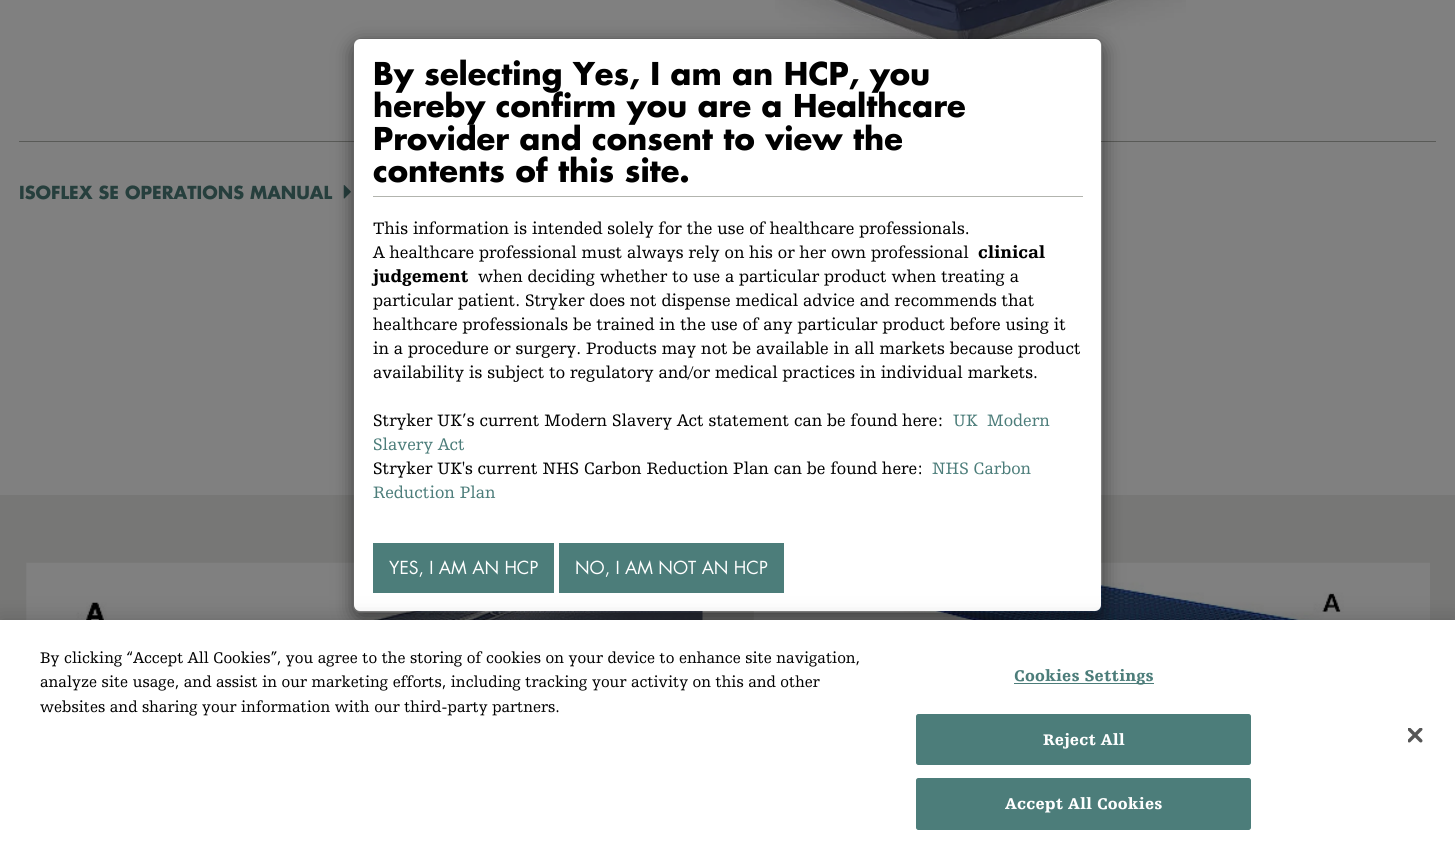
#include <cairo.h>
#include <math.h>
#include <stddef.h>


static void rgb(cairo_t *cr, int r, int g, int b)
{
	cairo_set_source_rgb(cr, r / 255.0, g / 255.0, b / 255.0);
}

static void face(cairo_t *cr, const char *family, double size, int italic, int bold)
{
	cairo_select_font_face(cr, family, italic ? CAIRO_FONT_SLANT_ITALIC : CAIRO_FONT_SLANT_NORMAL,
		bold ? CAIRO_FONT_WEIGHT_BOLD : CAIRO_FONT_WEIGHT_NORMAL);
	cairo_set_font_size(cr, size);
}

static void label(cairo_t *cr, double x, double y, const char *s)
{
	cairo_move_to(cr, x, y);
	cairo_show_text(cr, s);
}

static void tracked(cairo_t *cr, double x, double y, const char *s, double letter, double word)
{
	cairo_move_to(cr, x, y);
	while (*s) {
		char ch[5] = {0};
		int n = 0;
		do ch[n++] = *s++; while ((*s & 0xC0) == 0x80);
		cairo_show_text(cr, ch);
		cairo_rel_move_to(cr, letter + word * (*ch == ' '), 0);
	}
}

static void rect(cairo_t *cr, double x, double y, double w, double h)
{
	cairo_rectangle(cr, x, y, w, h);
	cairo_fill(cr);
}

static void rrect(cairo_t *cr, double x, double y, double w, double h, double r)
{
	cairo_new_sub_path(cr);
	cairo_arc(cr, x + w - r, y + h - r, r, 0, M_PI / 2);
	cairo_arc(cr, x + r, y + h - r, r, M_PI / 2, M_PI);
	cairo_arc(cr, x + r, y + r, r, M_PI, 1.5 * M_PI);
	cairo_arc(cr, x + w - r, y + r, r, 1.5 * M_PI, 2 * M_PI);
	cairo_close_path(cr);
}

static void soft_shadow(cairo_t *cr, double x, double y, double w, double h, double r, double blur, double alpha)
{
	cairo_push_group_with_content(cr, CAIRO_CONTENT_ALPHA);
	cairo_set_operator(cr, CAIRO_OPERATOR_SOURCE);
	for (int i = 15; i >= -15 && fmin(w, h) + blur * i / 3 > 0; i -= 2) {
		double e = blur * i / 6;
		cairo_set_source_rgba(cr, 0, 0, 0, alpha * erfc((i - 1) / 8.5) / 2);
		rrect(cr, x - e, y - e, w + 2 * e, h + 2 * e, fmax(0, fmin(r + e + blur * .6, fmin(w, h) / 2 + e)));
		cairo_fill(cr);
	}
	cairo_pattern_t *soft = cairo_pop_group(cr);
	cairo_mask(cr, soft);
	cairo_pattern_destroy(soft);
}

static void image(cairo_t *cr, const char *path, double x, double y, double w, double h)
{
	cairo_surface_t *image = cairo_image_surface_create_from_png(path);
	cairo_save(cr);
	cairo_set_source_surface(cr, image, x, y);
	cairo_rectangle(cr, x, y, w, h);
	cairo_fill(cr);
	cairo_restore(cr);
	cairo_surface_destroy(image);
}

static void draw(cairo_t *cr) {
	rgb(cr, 128, 128, 128);
	cairo_paint(cr);
	rgb(cr, 89, 90, 87);
	rect(cr, 19, 141, 1417, 1);
	image(cr, "image0.png", 775, 0, 411, 69);
	face(cr, "Futura", 17.5, 0, 1);
	rgb(cr, 38, 63, 61);
	label(cr, 19, 199, "ISOFLEX SE OPERATIONS MANUAL");
	image(cr, "image1.png", 343, 185, 8, 14);
	rgb(cr, 119, 119, 118);
	rect(cr, 0, 495, 1455, 125);
	image(cr, "image2.png", 26, 562, 677, 58);
	image(cr, "image3.png", 753, 562, 677, 58);
	cairo_save(cr);
	cairo_set_fill_rule(cr, CAIRO_FILL_RULE_EVEN_ODD);
	cairo_new_path(cr);
	cairo_move_to(cr, 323, 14);
	cairo_line_to(cr, 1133, 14);
	cairo_line_to(cr, 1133, 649);
	cairo_line_to(cr, 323, 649);
	cairo_close_path(cr);
	cairo_move_to(cr, 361, 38);
	cairo_line_to(cr, 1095, 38);
	cairo_curve_to(cr, 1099.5, 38, 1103, 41.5, 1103, 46);
	cairo_line_to(cr, 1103, 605);
	cairo_curve_to(cr, 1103, 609.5, 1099.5, 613, 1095, 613);
	cairo_line_to(cr, 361, 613);
	cairo_curve_to(cr, 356.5, 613, 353, 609.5, 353, 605);
	cairo_line_to(cr, 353, 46);
	cairo_curve_to(cr, 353, 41.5, 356.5, 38, 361, 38);
	cairo_close_path(cr);
	cairo_clip(cr);
	rgb(cr, 0, 0, 0);
	soft_shadow(cr, 353, 44, 750, 575, 8, 9.5, 0.5);
	cairo_restore(cr);
	rgb(cr, 255, 255, 255);
	rrect(cr, 354, 39, 747, 572, 6);
	cairo_fill(cr);
	rrect(cr, 353.5, 38.5, 749, 574, 7.5);
	cairo_set_source_rgba(cr, 0, 0, 0, 0.2);
	cairo_set_line_width(cr, 1);
	cairo_stroke(cr);
	rgb(cr, 178, 180, 174);
	rect(cr, 373, 196, 710, 1);
	face(cr, "Futura", 30.6, 0, 1);
	rgb(cr, 0, 0, 0);
	label(cr, 373, 85, "By selecting Yes, I am an HCP, you");
	label(cr, 373, 117, "hereby confirm you are a Healthcare");
	label(cr, 373, 150, "Provider and consent to view the");
	label(cr, 373, 182, "contents of this site.");
	face(cr, "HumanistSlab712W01", 17.5, 0, 0);
	label(cr, 373, 234, "This information is intended solely for the use of healthcare professionals.");
	label(cr, 373, 258, "A healthcare professional must always rely on his or her own professional");
	face(cr, "HumanistSlab712W01 Black", 17.5, 0, 0);
	label(cr, 978, 258, "clinical");
	label(cr, 373, 282, "judgement");
	face(cr, "HumanistSlab712W01", 17.5, 0, 0);
	label(cr, 478, 282, "when deciding whether to use a particular product when treating a");
	label(cr, 373, 306, "particular patient. Stryker does not dispense medical advice and recommends that");
	label(cr, 373, 330, "healthcare professionals be trained in the use of any particular product before using it");
	label(cr, 373, 354, "in a procedure or surgery. Products may not be available in all markets because product");
	label(cr, 373, 378, "availability is subject to regulatory and/or medical practices in individual markets.");
	label(cr, 373, 426, "Stryker UK’s current Modern Slavery Act statement can be found here:");
	rgb(cr, 76, 125, 122);
	label(cr, 953, 426, "UK");
	label(cr, 987, 426, "Modern");
	label(cr, 373, 450, "Slavery Act");
	rgb(cr, 0, 0, 0);
	label(cr, 373, 474, "Stryker UK's current NHS Carbon Reduction Plan can be found here:");
	rgb(cr, 76, 125, 122);
	label(cr, 932, 474, "NHS Carbon");
	label(cr, 373, 498, "Reduction Plan");
	rect(cr, 373, 543, 181, 50);
	face(cr, "Futura", 17.5, 0, 0);
	rgb(cr, 255, 255, 255);
	label(cr, 389, 574, "YES, I AM AN HCP");
	rgb(cr, 76, 125, 122);
	rect(cr, 559, 543, 225, 50);
	rgb(cr, 255, 255, 255);
	label(cr, 575, 574, "NO, I AM NOT AN HCP");
	rgb(cr, 0, 0, 0);
	soft_shadow(cr, 0, 620, 1455, 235, 0, 11, 0.2);
	rgb(cr, 255, 255, 255);
	rect(cr, 0, 620, 1455, 234);
	face(cr, "HumanistSlab712W01", 16.25, 0, 0);
	rgb(cr, 0, 0, 0);
	label(cr, 40, 663, "By clicking “Accept All Cookies”, you agree to the storing of cookies on your device to enhance site navigation,");
	label(cr, 40, 687, "analyze site usage, and assist in our marketing efforts, including tracking your activity on this and other");
	label(cr, 40, 712, "websites and sharing your information with our third-party partners.");
	rgb(cr, 76, 125, 122);
	rect(cr, 1014, 683, 140, 1);
	face(cr, "HumanistSlab712W01 Black", 16.25, 0, 0);
	tracked(cr, 1014, 681, "Cookies Settings", 0.2, 0);
	rrect(cr, 916.5, 714.5, 334, 50, 2);
	cairo_fill_preserve(cr);
	cairo_stroke(cr);
	rgb(cr, 255, 255, 255);
	tracked(cr, 1043, 745, "Reject All", 0.2, 0);
	rgb(cr, 76, 125, 122);
	rrect(cr, 916.5, 778.5, 334, 51, 2);
	cairo_fill_preserve(cr);
	cairo_stroke(cr);
	rgb(cr, 255, 255, 255);
	tracked(cr, 1005, 809, "Accept All Cookies", 0.2, 0);
	image(cr, "image4.png", 1408, 728, 15, 15);
}

int main(void) {
	cairo_surface_t *surface = cairo_image_surface_create(CAIRO_FORMAT_RGB24, 1455, 854);
	cairo_t *cr = cairo_create(surface);
	cairo_font_options_t *options = cairo_font_options_create();
	cairo_font_options_set_hint_metrics(options, CAIRO_HINT_METRICS_OFF);
	cairo_font_options_set_hint_style(options, CAIRO_HINT_STYLE_NONE);
	cairo_set_font_options(cr, options);
	cairo_set_miter_limit(cr, 4);
	draw(cr);
	cairo_surface_write_to_png(surface, "render.png");
	cairo_font_options_destroy(options);
	cairo_destroy(cr);
	cairo_surface_destroy(surface);
	return 0;
}
